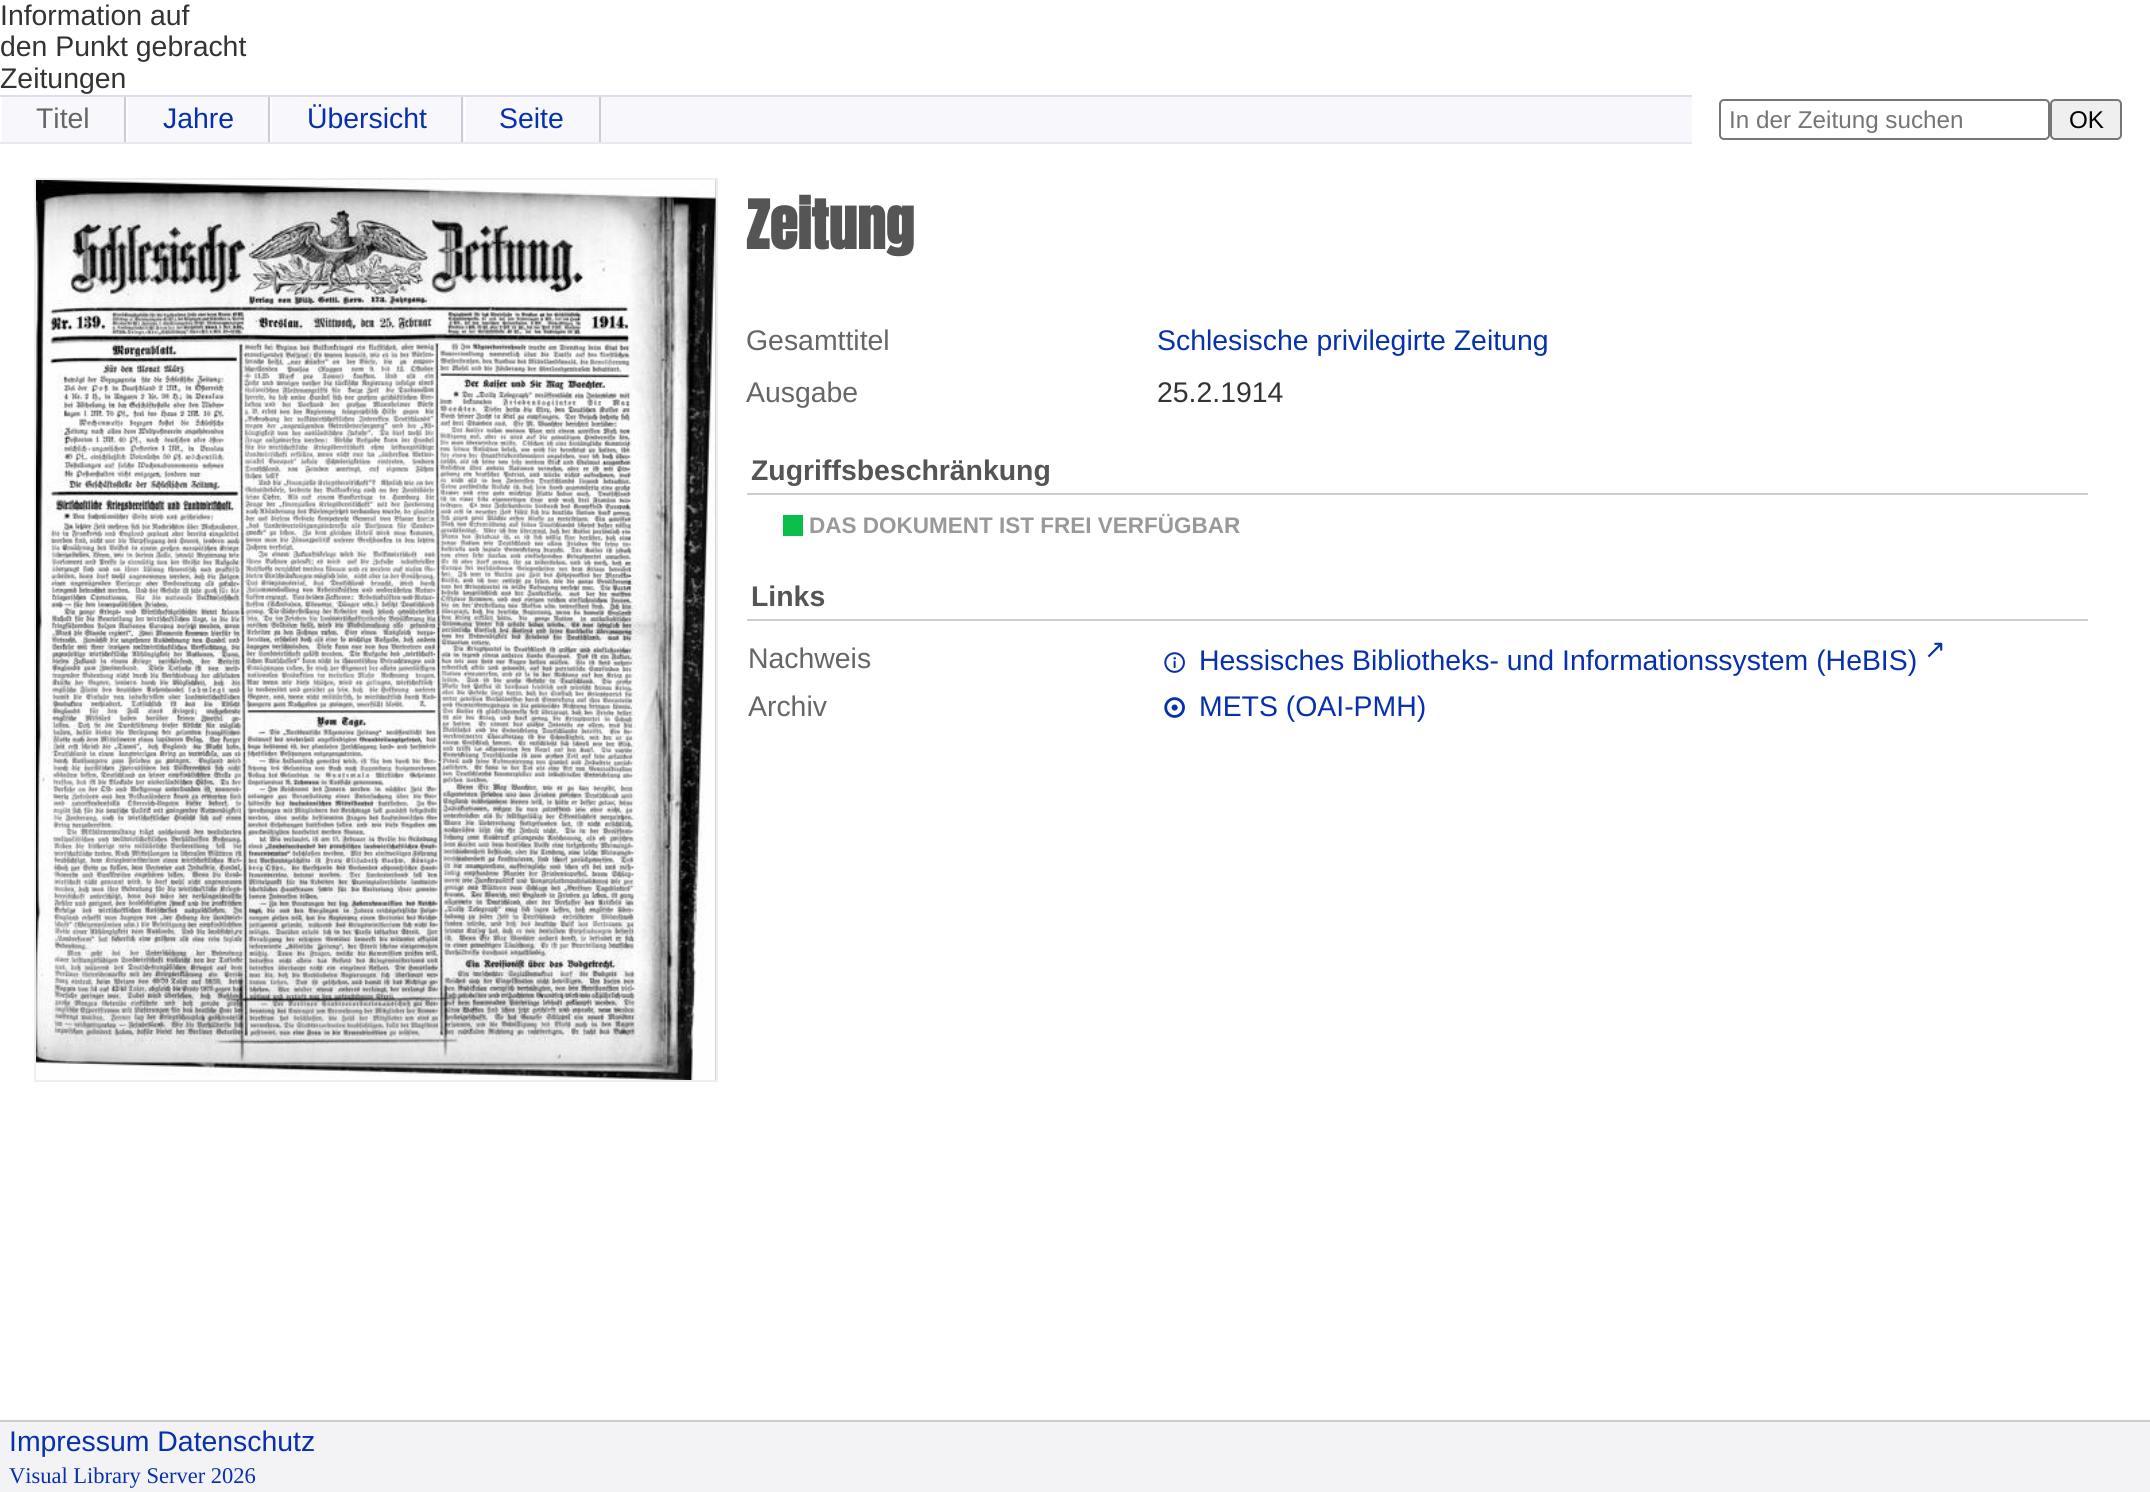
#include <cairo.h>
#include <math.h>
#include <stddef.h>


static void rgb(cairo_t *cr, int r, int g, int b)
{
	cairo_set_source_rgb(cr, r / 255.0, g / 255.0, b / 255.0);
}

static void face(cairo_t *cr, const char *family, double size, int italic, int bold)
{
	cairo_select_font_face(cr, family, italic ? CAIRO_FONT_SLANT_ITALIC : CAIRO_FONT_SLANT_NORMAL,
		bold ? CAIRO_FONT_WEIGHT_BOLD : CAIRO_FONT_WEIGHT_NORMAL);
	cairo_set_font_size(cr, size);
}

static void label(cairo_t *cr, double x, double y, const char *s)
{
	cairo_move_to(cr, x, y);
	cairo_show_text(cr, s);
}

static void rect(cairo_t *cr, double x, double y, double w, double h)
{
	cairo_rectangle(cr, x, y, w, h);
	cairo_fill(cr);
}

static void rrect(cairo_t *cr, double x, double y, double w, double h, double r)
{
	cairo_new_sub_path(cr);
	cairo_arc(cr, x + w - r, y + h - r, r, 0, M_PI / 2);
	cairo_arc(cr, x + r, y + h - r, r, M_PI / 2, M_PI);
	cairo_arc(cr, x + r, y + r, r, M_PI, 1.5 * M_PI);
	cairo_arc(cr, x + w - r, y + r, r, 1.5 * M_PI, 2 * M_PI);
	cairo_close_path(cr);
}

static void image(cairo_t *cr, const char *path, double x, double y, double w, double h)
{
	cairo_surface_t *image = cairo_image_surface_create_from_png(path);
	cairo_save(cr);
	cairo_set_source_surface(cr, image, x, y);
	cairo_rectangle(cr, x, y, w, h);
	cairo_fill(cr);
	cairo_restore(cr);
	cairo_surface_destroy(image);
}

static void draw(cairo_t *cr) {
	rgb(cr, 255, 255, 255);
	cairo_paint(cr);
	face(cr, "Liberation Sans", 28.4, 0, 0);
	rgb(cr, 51, 51, 51);
	label(cr, 0, 25, "Information auf");
	label(cr, 0, 56, "den Punkt gebracht");
	label(cr, 0, 88, "Zeitungen");
	rgb(cr, 248, 247, 251);
	rect(cr, 2, 97, 1690, 45);
	rgb(cr, 221, 221, 238);
	rect(cr, 0, 95, 1692, 2);
	rgb(cr, 232, 232, 240);
	rect(cr, 0, 142, 1692, 2);
	rgb(cr, 204, 203, 215);
	rect(cr, 124, 97, 2, 45);
	rgb(cr, 102, 102, 102);
	label(cr, 36, 128, "Titel");
	rgb(cr, 204, 203, 215);
	rect(cr, 268, 97, 2, 45);
	rgb(cr, 255, 255, 255);
	rect(cr, 126, 97, 2, 45);
	rgb(cr, 6, 48, 172);
	label(cr, 163, 128, "Jahre");
	rgb(cr, 204, 203, 215);
	rect(cr, 461, 97, 2, 45);
	rgb(cr, 255, 255, 255);
	rect(cr, 270, 97, 2, 45);
	rgb(cr, 6, 48, 172);
	label(cr, 307, 128, "Übersicht");
	rgb(cr, 204, 203, 215);
	rect(cr, 599, 97, 2, 45);
	rgb(cr, 255, 255, 255);
	rect(cr, 464, 97, 2, 45);
	rgb(cr, 6, 48, 172);
	label(cr, 499, 128, "Seite");
	rrect(cr, 1720, 100, 329, 39, 4);
	rgb(cr, 118, 118, 118);
	cairo_stroke(cr);
	face(cr, "Liberation Sans", 24.25, 0, 0);
	rgb(cr, 117, 117, 117);
	label(cr, 1729, 128, "In der Zeitung suchen");
	rgb(cr, 239, 239, 239);
	rrect(cr, 2051, 100, 70, 39, 4);
	cairo_fill_preserve(cr);
	rgb(cr, 118, 118, 118);
	cairo_stroke(cr);
	rgb(cr, 0, 0, 0);
	label(cr, 2069, 128, "OK");
	rgb(cr, 170, 170, 170);
	rect(cr, 715, 180, 1, 900);
	cairo_rectangle(cr, 35, 179, 682, 902);
	rgb(cr, 238, 238, 236);
	cairo_stroke(cr);
	image(cr, "image0.png", 36, 180, 680, 900);
	face(cr, "Anton", 57, 0, 1);
	rgb(cr, 85, 85, 85);
	label(cr, 746, 249, "Zeitung");
	face(cr, "Liberation Sans", 28.4, 0, 0);
	rgb(cr, 102, 102, 102);
	label(cr, 746, 350, "Gesamttitel");
	rgb(cr, 6, 48, 172);
	label(cr, 1157, 350, "Schlesische privilegirte Zeitung");
	rgb(cr, 102, 102, 102);
	label(cr, 746, 402, "Ausgabe");
	rgb(cr, 51, 51, 51);
	label(cr, 1157, 402, "25.2.1914");
	rgb(cr, 204, 204, 204);
	rect(cr, 747, 493, 1341, 2);
	face(cr, "Liberation Sans", 28.4, 0, 1);
	rgb(cr, 85, 85, 85);
	label(cr, 751, 480, "Zugriffsbeschränkung");
	rgb(cr, 11, 190, 73);
	rect(cr, 783, 515, 20, 21);
	face(cr, "Liberation Sans", 22.5, 0, 1);
	rgb(cr, 153, 153, 153);
	label(cr, 809, 533, "DAS DOKUMENT IST FREI VERFÜGBAR");
	rgb(cr, 204, 204, 204);
	rect(cr, 747, 619, 1341, 2);
	face(cr, "Liberation Sans", 28.4, 0, 1);
	rgb(cr, 85, 85, 85);
	label(cr, 751, 606, "Links");
	face(cr, "Liberation Sans", 28.4, 0, 0);
	rgb(cr, 102, 102, 102);
	label(cr, 748, 668, "Nachweis");
	image(cr, "image1.png", 1164, 652, 21, 21);
	rgb(cr, 6, 48, 172);
	label(cr, 1199, 670, "Hessisches Bibliotheks- und Informationssystem (HeBIS)");
	face(cr, "DejaVu Sans", 26, 0, 0);
	label(cr, 1924, 658, "↗");
	face(cr, "Liberation Sans", 28.4, 0, 0);
	rgb(cr, 102, 102, 102);
	label(cr, 748, 716, "Archiv");
	image(cr, "image2.png", 1164, 697, 21, 21);
	rgb(cr, 6, 48, 172);
	label(cr, 1199, 716, "METS (OAI-PMH)");
	rgb(cr, 243, 243, 246);
	rect(cr, 0, 1422, 2150, 70);
	rgb(cr, 204, 204, 204);
	rect(cr, 0, 1420, 2150, 2);
	rgb(cr, 6, 48, 172);
	label(cr, 9, 1451, "Impressum Datenschutz");
	face(cr, "Liberation Serif", 22.5, 0, 0);
	label(cr, 9, 1483, "Visual Library Server 2026");
}

int main(void) {
	cairo_surface_t *surface = cairo_image_surface_create(CAIRO_FORMAT_RGB24, 2150, 1492);
	cairo_t *cr = cairo_create(surface);
	cairo_font_options_t *options = cairo_font_options_create();
	cairo_font_options_set_hint_metrics(options, CAIRO_HINT_METRICS_OFF);
	cairo_font_options_set_hint_style(options, CAIRO_HINT_STYLE_NONE);
	cairo_set_font_options(cr, options);
	cairo_set_miter_limit(cr, 4);
	draw(cr);
	cairo_surface_write_to_png(surface, "render.png");
	cairo_font_options_destroy(options);
	cairo_destroy(cr);
	cairo_surface_destroy(surface);
	return 0;
}
